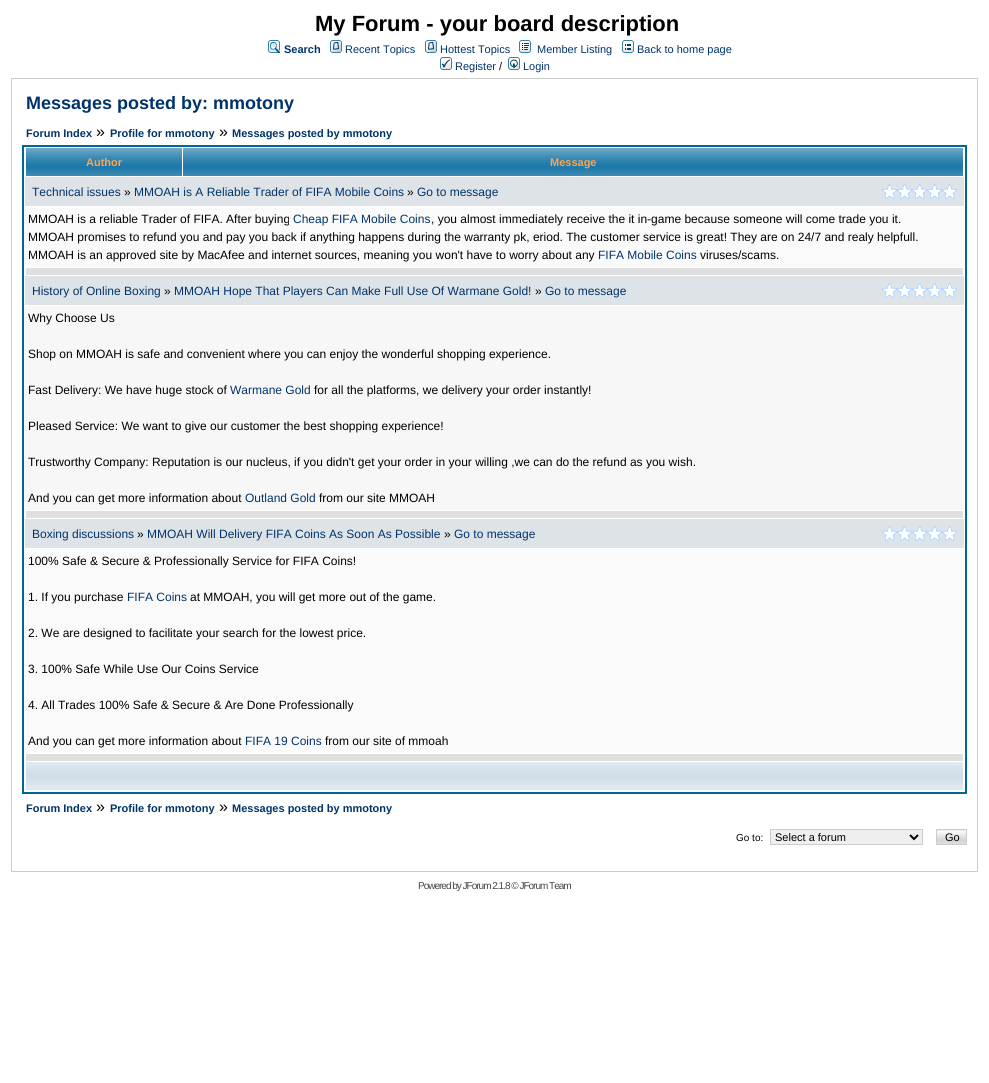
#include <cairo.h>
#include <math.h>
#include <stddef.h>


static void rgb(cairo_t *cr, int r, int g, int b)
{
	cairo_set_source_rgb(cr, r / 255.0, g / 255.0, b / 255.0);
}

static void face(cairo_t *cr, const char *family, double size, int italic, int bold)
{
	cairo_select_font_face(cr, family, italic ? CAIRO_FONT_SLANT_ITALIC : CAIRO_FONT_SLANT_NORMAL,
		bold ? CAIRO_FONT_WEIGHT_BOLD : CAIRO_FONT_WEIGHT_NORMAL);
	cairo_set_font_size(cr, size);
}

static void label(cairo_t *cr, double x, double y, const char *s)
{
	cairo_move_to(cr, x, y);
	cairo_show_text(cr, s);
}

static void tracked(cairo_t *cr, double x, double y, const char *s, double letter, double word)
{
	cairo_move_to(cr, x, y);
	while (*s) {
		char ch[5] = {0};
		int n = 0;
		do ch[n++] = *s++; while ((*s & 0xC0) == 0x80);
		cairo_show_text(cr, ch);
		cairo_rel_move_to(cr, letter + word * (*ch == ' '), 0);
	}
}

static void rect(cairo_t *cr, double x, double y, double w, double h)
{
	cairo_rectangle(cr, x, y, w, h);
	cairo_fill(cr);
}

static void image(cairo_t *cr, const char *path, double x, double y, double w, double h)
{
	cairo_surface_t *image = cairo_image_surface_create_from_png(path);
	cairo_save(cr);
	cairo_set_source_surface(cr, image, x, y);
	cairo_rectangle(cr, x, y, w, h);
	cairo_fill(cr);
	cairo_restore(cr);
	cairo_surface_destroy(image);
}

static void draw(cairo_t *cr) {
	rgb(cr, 255, 255, 255);
	cairo_paint(cr);
	face(cr, "Liberation Sans", 22, 0, 1);
	rgb(cr, 0, 0, 0);
	label(cr, 315, 31, "My Forum - your board description");
	image(cr, "image0.png", 268, 40, 12, 13);
	face(cr, "Liberation Sans", 11, 0, 1);
	rgb(cr, 1, 51, 107);
	label(cr, 284, 53, "Search");
	image(cr, "image1.png", 330, 40, 12, 13);
	face(cr, "Liberation Sans", 11, 0, 0);
	label(cr, 345, 53, "Recent Topics");
	image(cr, "image1.png", 425, 40, 12, 13);
	label(cr, 440, 53, "Hottest Topics");
	image(cr, "image2.png", 519, 40, 12, 13);
	label(cr, 537, 53, "Member Listing");
	image(cr, "image3.png", 622, 40, 12, 13);
	label(cr, 637, 53, "Back to home page");
	image(cr, "image4.png", 440, 57, 12, 13);
	label(cr, 455, 70, "Register");
	rgb(cr, 0, 0, 0);
	label(cr, 499, 70, "/");
	image(cr, "image5.png", 508, 57, 12, 13);
	rgb(cr, 1, 51, 107);
	label(cr, 523, 70, "Login");
	cairo_rectangle(cr, 11.5, 78.5, 966, 793);
	rgb(cr, 204, 204, 204);
	cairo_set_line_width(cr, 1);
	cairo_stroke(cr);
	face(cr, "Liberation Sans", 18, 0, 1);
	rgb(cr, 1, 51, 107);
	label(cr, 26, 109, "Messages posted by: mmotony");
	face(cr, "Liberation Sans", 11, 0, 1);
	label(cr, 26, 137, "Forum Index");
	face(cr, "Liberation Sans", 16, 0, 0);
	rgb(cr, 0, 0, 0);
	label(cr, 96, 137, "»");
	face(cr, "Liberation Sans", 11, 0, 1);
	rgb(cr, 1, 51, 107);
	label(cr, 110, 137, "Profile for mmotony");
	face(cr, "Liberation Sans", 16, 0, 0);
	rgb(cr, 0, 0, 0);
	label(cr, 219, 137, "»");
	face(cr, "Liberation Sans", 11, 0, 1);
	rgb(cr, 1, 51, 107);
	label(cr, 232, 137, "Messages posted by mmotony");
	cairo_rectangle(cr, 23, 146, 943, 647);
	rgb(cr, 0, 102, 153);
	cairo_set_line_width(cr, 2);
	cairo_stroke(cr);
	image(cr, "image6.png", 26, 148, 156, 28);
	rgb(cr, 255, 163, 79);
	label(cr, 86, 166, "Author");
	image(cr, "image7.png", 183, 148, 780, 28);
	label(cr, 550, 166, "Message");
	rgb(cr, 222, 227, 231);
	rect(cr, 25, 177, 939, 29);
	face(cr, "Liberation Sans", 12, 0, 0);
	rgb(cr, 1, 51, 107);
	label(cr, 32, 196, "Technical issues");
	rgb(cr, 0, 0, 0);
	label(cr, 124, 196, "»");
	rgb(cr, 1, 51, 107);
	label(cr, 134, 196, "MMOAH is A Reliable Trader of FIFA Mobile Coins");
	rgb(cr, 0, 0, 0);
	label(cr, 407, 196, "»");
	rgb(cr, 1, 51, 107);
	label(cr, 417, 196, "Go to message");
	image(cr, "image8.png", 882, 184, 15, 15);
	image(cr, "image8.png", 897, 184, 15, 15);
	image(cr, "image8.png", 912, 184, 15, 15);
	image(cr, "image8.png", 927, 184, 15, 15);
	image(cr, "image8.png", 942, 184, 15, 15);
	rgb(cr, 250, 250, 250);
	rect(cr, 25, 207, 939, 60);
	rgb(cr, 0, 0, 0);
	label(cr, 28, 223, "MMOAH is a reliable Trader of FIFA. After buying");
	rgb(cr, 1, 51, 107);
	label(cr, 293, 223, "Cheap FIFA Mobile Coins");
	rgb(cr, 0, 0, 0);
	label(cr, 431, 223, ", you almost immediately receive the it in-game because someone will come trade you it.");
	label(cr, 28, 241, "MMOAH promises to refund you and pay you back if anything happens during the warranty pk, eriod. The customer service is great! They are on 24/7 and realy helpfull.");
	label(cr, 28, 259, "MMOAH is an approved site by MacAfee and internet sources, meaning you won't have to worry about any");
	rgb(cr, 1, 51, 107);
	label(cr, 598, 259, "FIFA Mobile Coins");
	rgb(cr, 0, 0, 0);
	label(cr, 700, 259, "viruses/scams.");
	rgb(cr, 223, 223, 223);
	rect(cr, 26, 268, 937, 7);
	rgb(cr, 222, 227, 231);
	rect(cr, 25, 276, 939, 29);
	rgb(cr, 1, 51, 107);
	label(cr, 32, 295, "History of Online Boxing");
	rgb(cr, 0, 0, 0);
	label(cr, 164, 295, "»");
	rgb(cr, 1, 51, 107);
	label(cr, 174, 295, "MMOAH Hope That Players Can Make Full Use Of Warmane Gold!");
	rgb(cr, 0, 0, 0);
	label(cr, 535, 295, "»");
	rgb(cr, 1, 51, 107);
	label(cr, 545, 295, "Go to message");
	image(cr, "image8.png", 882, 283, 15, 15);
	image(cr, "image8.png", 897, 283, 15, 15);
	image(cr, "image8.png", 912, 283, 15, 15);
	image(cr, "image8.png", 927, 283, 15, 15);
	image(cr, "image8.png", 942, 283, 15, 15);
	rgb(cr, 247, 247, 248);
	rect(cr, 25, 306, 939, 204);
	rgb(cr, 0, 0, 0);
	label(cr, 28, 322, "Why Choose Us");
	label(cr, 28, 358, "Shop on MMOAH is safe and convenient where you can enjoy the wonderful shopping experience.");
	label(cr, 28, 394, "Fast Delivery: We have huge stock of");
	rgb(cr, 1, 51, 107);
	label(cr, 230, 394, "Warmane Gold");
	rgb(cr, 0, 0, 0);
	label(cr, 314, 394, "for all the platforms, we delivery your order instantly!");
	label(cr, 28, 430, "Pleased Service: We want to give our customer the best shopping experience!");
	label(cr, 28, 466, "Trustworthy Company: Reputation is our nucleus, if you didn't get your order in your willing ,we can do the refund as you wish.");
	label(cr, 28, 502, "And you can get more information about");
	rgb(cr, 1, 51, 107);
	label(cr, 245, 502, "Outland Gold");
	rgb(cr, 0, 0, 0);
	label(cr, 319, 502, "from our site MMOAH");
	rgb(cr, 223, 223, 223);
	rect(cr, 26, 511, 937, 7);
	rgb(cr, 222, 227, 231);
	rect(cr, 25, 519, 939, 29);
	rgb(cr, 1, 51, 107);
	label(cr, 32, 538, "Boxing discussions");
	rgb(cr, 0, 0, 0);
	label(cr, 137, 538, "»");
	rgb(cr, 1, 51, 107);
	label(cr, 147, 538, "MMOAH Will Delivery FIFA Coins As Soon As Possible");
	rgb(cr, 0, 0, 0);
	label(cr, 444, 538, "»");
	rgb(cr, 1, 51, 107);
	label(cr, 454, 538, "Go to message");
	image(cr, "image8.png", 882, 526, 15, 15);
	image(cr, "image8.png", 897, 526, 15, 15);
	image(cr, "image8.png", 912, 526, 15, 15);
	image(cr, "image8.png", 927, 526, 15, 15);
	image(cr, "image8.png", 942, 526, 15, 15);
	rgb(cr, 250, 250, 250);
	rect(cr, 25, 549, 939, 204);
	rgb(cr, 0, 0, 0);
	label(cr, 28, 565, "100% Safe & Secure & Professionally Service for FIFA Coins!");
	label(cr, 28, 601, "1. If you purchase");
	rgb(cr, 1, 51, 107);
	label(cr, 127, 601, "FIFA Coins");
	rgb(cr, 0, 0, 0);
	label(cr, 190, 601, "at MMOAH, you will get more out of the game.");
	label(cr, 28, 637, "2. We are designed to facilitate your search for the lowest price.");
	label(cr, 28, 673, "3. 100% Safe While Use Our Coins Service");
	label(cr, 28, 709, "4. All Trades 100% Safe & Secure & Are Done Professionally");
	label(cr, 28, 745, "And you can get more information about");
	rgb(cr, 1, 51, 107);
	label(cr, 245, 745, "FIFA 19 Coins");
	rgb(cr, 0, 0, 0);
	label(cr, 325, 745, "from our site of mmoah");
	rgb(cr, 223, 223, 223);
	rect(cr, 26, 754, 937, 7);
	image(cr, "image9.png", 26, 762, 937, 28);
	face(cr, "Liberation Sans", 11, 0, 1);
	rgb(cr, 1, 51, 107);
	label(cr, 26, 812, "Forum Index");
	face(cr, "Liberation Sans", 16, 0, 0);
	rgb(cr, 0, 0, 0);
	label(cr, 96, 812, "»");
	face(cr, "Liberation Sans", 11, 0, 1);
	rgb(cr, 1, 51, 107);
	label(cr, 110, 812, "Profile for mmotony");
	face(cr, "Liberation Sans", 16, 0, 0);
	rgb(cr, 0, 0, 0);
	label(cr, 219, 812, "»");
	face(cr, "Liberation Sans", 11, 0, 1);
	rgb(cr, 1, 51, 107);
	label(cr, 232, 812, "Messages posted by mmotony");
	face(cr, "Liberation Sans", 10, 0, 0);
	rgb(cr, 0, 0, 0);
	label(cr, 736, 841, "Go to:");
	rgb(cr, 239, 239, 239);
	cairo_rectangle(cr, 770.5, 829.5, 152, 15);
	cairo_fill_preserve(cr);
	rgb(cr, 204, 204, 204);
	cairo_set_line_width(cr, 1);
	cairo_stroke(cr);
	cairo_new_path(cr);
	cairo_move_to(cr, 910, 835);
	cairo_line_to(cr, 914, 839);
	cairo_line_to(cr, 918, 835);
	rgb(cr, 0, 0, 0);
	cairo_set_line_width(cr, 2);
	cairo_stroke(cr);
	face(cr, "Liberation Sans", 11, 0, 0);
	label(cr, 775, 841, "Select a forum");
	image(cr, "image10.png", 937, 830, 29, 14);
	cairo_rectangle(cr, 936.5, 829.5, 30, 15);
	rgb(cr, 204, 204, 204);
	cairo_set_line_width(cr, 1);
	cairo_stroke(cr);
	rgb(cr, 0, 0, 0);
	label(cr, 945, 841, "Go");
	face(cr, "Liberation Sans", 10, 0, 0);
	rgb(cr, 68, 68, 68);
	tracked(cr, 418, 889, "Powered by JForum 2.1.8 © JForum Team", -1, 0);
}

int main(void) {
	cairo_surface_t *surface = cairo_image_surface_create(CAIRO_FORMAT_RGB24, 989, 1083);
	cairo_t *cr = cairo_create(surface);
	cairo_font_options_t *options = cairo_font_options_create();
	cairo_font_options_set_hint_metrics(options, CAIRO_HINT_METRICS_OFF);
	cairo_font_options_set_hint_style(options, CAIRO_HINT_STYLE_NONE);
	cairo_set_font_options(cr, options);
	cairo_set_miter_limit(cr, 4);
	draw(cr);
	cairo_surface_write_to_png(surface, "render.png");
	cairo_font_options_destroy(options);
	cairo_destroy(cr);
	cairo_surface_destroy(surface);
	return 0;
}
